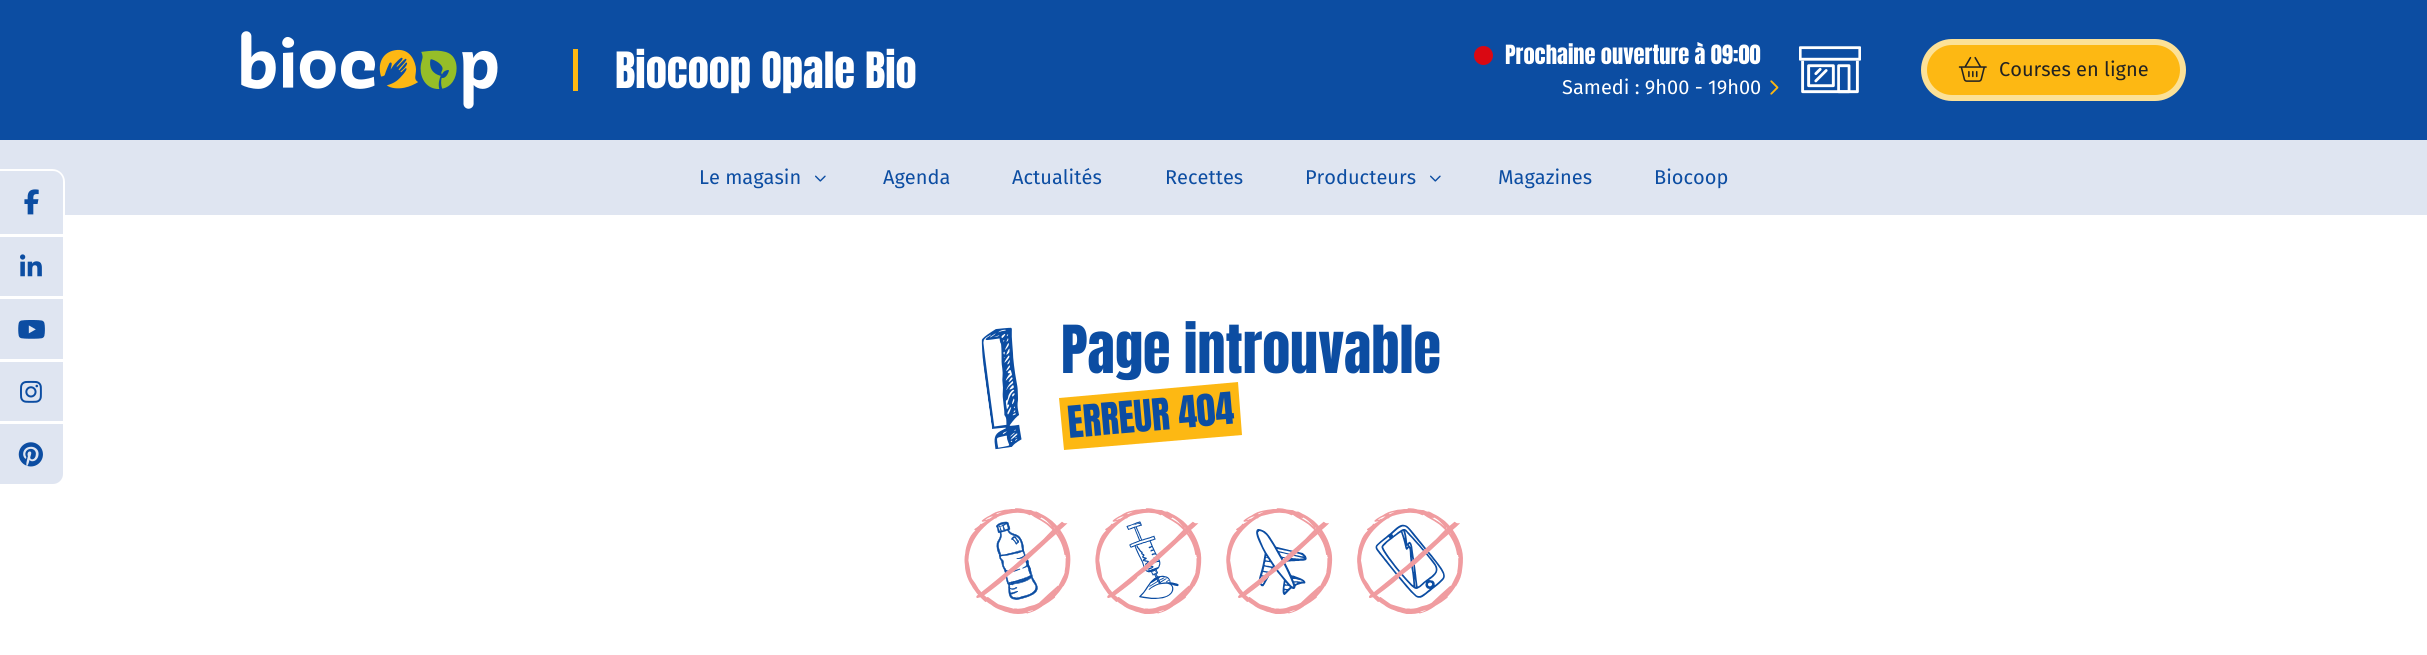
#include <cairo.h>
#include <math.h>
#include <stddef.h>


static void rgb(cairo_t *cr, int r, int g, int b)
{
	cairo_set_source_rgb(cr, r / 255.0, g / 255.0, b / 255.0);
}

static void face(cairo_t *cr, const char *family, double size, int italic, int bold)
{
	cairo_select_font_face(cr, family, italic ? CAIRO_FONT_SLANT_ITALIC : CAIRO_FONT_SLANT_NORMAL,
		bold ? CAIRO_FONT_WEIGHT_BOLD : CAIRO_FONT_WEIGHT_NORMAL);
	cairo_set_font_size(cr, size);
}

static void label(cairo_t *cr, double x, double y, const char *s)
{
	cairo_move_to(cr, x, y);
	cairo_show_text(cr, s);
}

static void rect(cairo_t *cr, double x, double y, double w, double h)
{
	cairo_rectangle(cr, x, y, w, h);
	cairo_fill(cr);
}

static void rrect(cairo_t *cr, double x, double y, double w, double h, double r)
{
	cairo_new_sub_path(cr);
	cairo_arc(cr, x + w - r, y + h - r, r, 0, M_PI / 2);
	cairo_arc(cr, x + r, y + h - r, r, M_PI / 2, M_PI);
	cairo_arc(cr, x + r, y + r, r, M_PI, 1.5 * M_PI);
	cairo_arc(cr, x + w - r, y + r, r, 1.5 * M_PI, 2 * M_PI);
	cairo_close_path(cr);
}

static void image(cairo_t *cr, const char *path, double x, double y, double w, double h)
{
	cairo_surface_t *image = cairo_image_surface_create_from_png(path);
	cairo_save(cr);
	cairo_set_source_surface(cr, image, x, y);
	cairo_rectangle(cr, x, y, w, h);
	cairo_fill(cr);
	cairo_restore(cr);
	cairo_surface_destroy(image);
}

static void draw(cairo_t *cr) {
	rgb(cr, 255, 255, 255);
	cairo_paint(cr);
	rgb(cr, 12, 77, 162);
	rect(cr, 0, 0, 2427, 140);
	image(cr, "image0.png", 241, 31, 257, 78);
	rgb(cr, 253, 184, 19);
	rect(cr, 573, 49, 5, 42);
	face(cr, "Anton", 42.5, 0, 0);
	rgb(cr, 255, 255, 255);
	label(cr, 615, 88, "Biocoop Opale Bio");
	rgb(cr, 218, 8, 18);
	cairo_new_path(cr);
	cairo_arc(cr, 1483.5, 55.5, 9.5, 0, 2 * M_PI);
	cairo_fill(cr);
	face(cr, "Anton", 22.5, 0, 0);
	rgb(cr, 255, 255, 255);
	label(cr, 1505, 64, "Prochaine ouverture à 09:00");
	image(cr, "image1.png", 1799, 46, 62, 48);
	face(cr, "Fira Sans", 20, 0, 0);
	label(cr, 1562, 94, "Samedi : 9h00 - 19h00");
	image(cr, "image2.png", 1770, 80, 9, 15);
	rgb(cr, 253, 184, 19);
	rrect(cr, 1924, 42, 259, 56, 28);
	cairo_fill_preserve(cr);
	rgb(cr, 252, 225, 151);
	cairo_set_line_width(cr, 6);
	cairo_stroke(cr);
	image(cr, "image3.png", 1958, 56, 29, 26);
	rgb(cr, 34, 34, 34);
	label(cr, 1999, 76, "Courses en ligne");
	rgb(cr, 223, 229, 241);
	rect(cr, 0, 140, 2427, 75);
	rgb(cr, 12, 77, 162);
	label(cr, 699, 184, "Le magasin");
	image(cr, "image4.png", 815, 175, 11, 7);
	label(cr, 883, 184, "Agenda");
	label(cr, 1012, 184, "Actualités");
	label(cr, 1165, 184, "Recettes");
	label(cr, 1305, 184, "Producteurs");
	image(cr, "image4.png", 1430, 175, 11, 7);
	label(cr, 1498, 184, "Magazines");
	label(cr, 1654, 184, "Biocoop");
	cairo_new_path(cr);
	cairo_move_to(cr, -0.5, 170.5);
	cairo_line_to(cr, 52, 170.5);
	cairo_curve_to(cr, 58.5, 170.5, 63.5, 175.5, 63.5, 182);
	cairo_line_to(cr, 63.5, 473);
	cairo_curve_to(cr, 63.5, 479.5, 58.5, 484.5, 52, 484.5);
	cairo_line_to(cr, -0.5, 484.5);
	cairo_close_path(cr);
	rgb(cr, 255, 255, 255);
	cairo_set_line_width(cr, 3);
	cairo_stroke(cr);
	rgb(cr, 223, 229, 241);
	cairo_new_path(cr);
	cairo_move_to(cr, 0, 171);
	cairo_line_to(cr, 53, 171);
	cairo_curve_to(cr, 58.5, 171, 63, 175.5, 63, 181);
	cairo_line_to(cr, 63, 234);
	cairo_line_to(cr, 0, 234);
	cairo_close_path(cr);
	cairo_fill(cr);
	image(cr, "image5.png", 24, 189, 15, 26);
	rect(cr, 0, 237, 63, 59);
	image(cr, "image6.png", 20, 254, 22, 23);
	rect(cr, 0, 299, 63, 60);
	image(cr, "image7.png", 18, 320, 27, 19);
	rect(cr, 0, 362, 63, 59);
	image(cr, "image8.png", 20, 380, 22, 23);
	cairo_new_path(cr);
	cairo_move_to(cr, 0, 424);
	cairo_line_to(cr, 63, 424);
	cairo_line_to(cr, 63, 474);
	cairo_curve_to(cr, 63, 479.5, 58.5, 484, 53, 484);
	cairo_line_to(cr, 0, 484);
	cairo_close_path(cr);
	cairo_fill(cr);
	image(cr, "image9.png", 18, 442, 25, 25);
	image(cr, "image10.png", 981, 327, 41, 123);
	face(cr, "Anton", 56.25, 0, 0);
	rgb(cr, 12, 77, 162);
	label(cr, 1061, 373, "Page introuvable");
	rgb(cr, 253, 184, 19);
	cairo_new_path(cr);
	cairo_move_to(cr, 1059, 398);
	cairo_line_to(cr, 1238, 382);
	cairo_line_to(cr, 1242, 435);
	cairo_line_to(cr, 1064, 450);
	cairo_close_path(cr);
	cairo_fill(cr);
	face(cr, "Anton", 37.5, 0, 0);
	rgb(cr, 12, 77, 162);
	cairo_save(cr);
	cairo_translate(cr, 1069, 438);
	cairo_rotate(cr, -5 * M_PI / 180);
	label(cr, 0, 0, "ERREUR 404");
	cairo_restore(cr);
	image(cr, "image11.png", 964, 508, 499, 106);
}

int main(void) {
	cairo_surface_t *surface = cairo_image_surface_create(CAIRO_FORMAT_RGB24, 2427, 655);
	cairo_t *cr = cairo_create(surface);
	cairo_font_options_t *options = cairo_font_options_create();
	cairo_font_options_set_hint_metrics(options, CAIRO_HINT_METRICS_OFF);
	cairo_font_options_set_hint_style(options, CAIRO_HINT_STYLE_NONE);
	cairo_set_font_options(cr, options);
	cairo_set_miter_limit(cr, 4);
	draw(cr);
	cairo_surface_write_to_png(surface, "render.png");
	cairo_font_options_destroy(options);
	cairo_destroy(cr);
	cairo_surface_destroy(surface);
	return 0;
}
